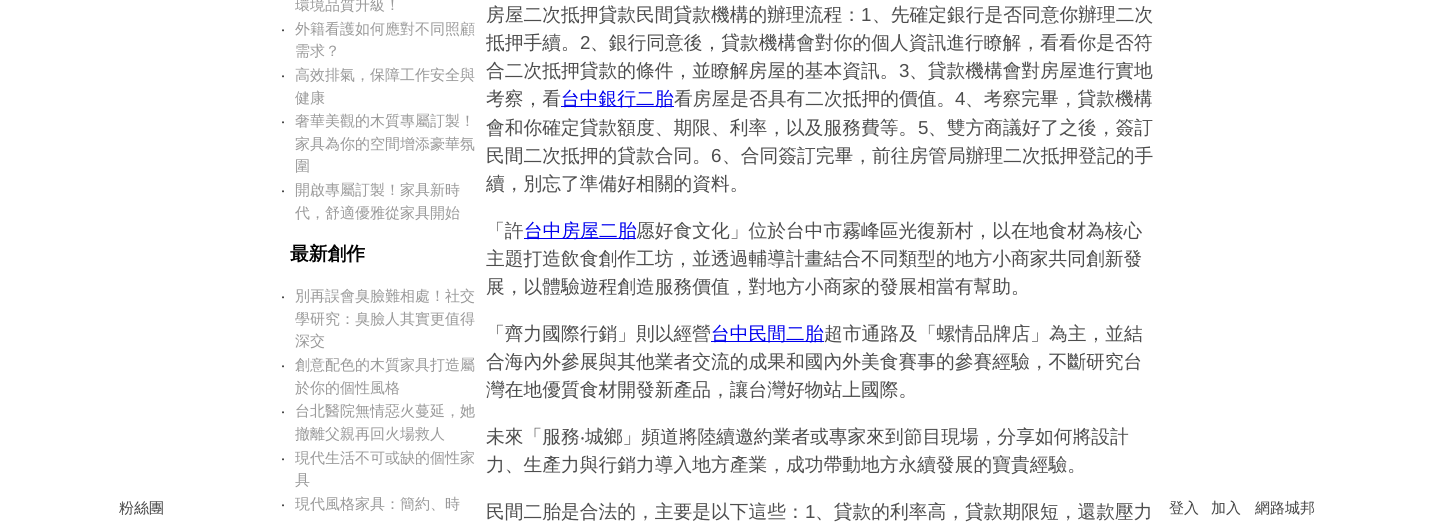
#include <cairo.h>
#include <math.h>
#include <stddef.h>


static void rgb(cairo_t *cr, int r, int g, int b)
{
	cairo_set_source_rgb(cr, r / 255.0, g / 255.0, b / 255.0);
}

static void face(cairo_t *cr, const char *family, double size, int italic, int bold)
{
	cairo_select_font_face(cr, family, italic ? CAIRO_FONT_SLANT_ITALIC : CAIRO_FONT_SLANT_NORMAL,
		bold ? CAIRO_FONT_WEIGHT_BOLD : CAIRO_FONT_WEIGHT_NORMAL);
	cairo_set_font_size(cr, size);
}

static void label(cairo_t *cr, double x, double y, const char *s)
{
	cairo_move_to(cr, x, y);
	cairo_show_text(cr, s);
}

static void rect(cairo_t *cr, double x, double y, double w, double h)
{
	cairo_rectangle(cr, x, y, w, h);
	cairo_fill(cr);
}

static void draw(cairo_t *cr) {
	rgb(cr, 255, 255, 255);
	cairo_paint(cr);
	face(cr, "WenQuanYi Zen Hei Medium", 15, 0, 0);
	rgb(cr, 153, 153, 153);
	label(cr, 295, 10, "環境品質升級！");
	face(cr, "Noto Sans", 15, 0, 0);
	rgb(cr, 51, 51, 51);
	label(cr, 281, 34, "‧");
	face(cr, "WenQuanYi Zen Hei Medium", 15, 0, 0);
	rgb(cr, 153, 153, 153);
	label(cr, 295, 34, "外籍看護如何應對不同照顧");
	label(cr, 295, 56, "需求？");
	face(cr, "Noto Sans", 15, 0, 0);
	rgb(cr, 51, 51, 51);
	label(cr, 281, 80, "‧");
	face(cr, "WenQuanYi Zen Hei Medium", 15, 0, 0);
	rgb(cr, 153, 153, 153);
	label(cr, 295, 80, "高效排氣，保障工作安全與");
	label(cr, 295, 103, "健康");
	face(cr, "Noto Sans", 15, 0, 0);
	rgb(cr, 51, 51, 51);
	label(cr, 281, 126, "‧");
	face(cr, "WenQuanYi Zen Hei Medium", 15, 0, 0);
	rgb(cr, 153, 153, 153);
	label(cr, 295, 126, "奢華美觀的木質專屬訂製！");
	label(cr, 295, 149, "家具為你的空間增添豪華氛");
	label(cr, 295, 171, "圍");
	face(cr, "Noto Sans", 15, 0, 0);
	rgb(cr, 51, 51, 51);
	label(cr, 281, 195, "‧");
	face(cr, "WenQuanYi Zen Hei Medium", 15, 0, 0);
	rgb(cr, 153, 153, 153);
	label(cr, 295, 195, "開啟專屬訂製！家具新時");
	label(cr, 295, 218, "代，舒適優雅從家具開始");
	face(cr, "WenQuanYi Zen Hei", 18.75, 0, 1);
	rgb(cr, 0, 0, 0);
	label(cr, 290, 260, "最新創作");
	face(cr, "Noto Sans", 15, 0, 0);
	rgb(cr, 51, 51, 51);
	label(cr, 281, 301, "‧");
	face(cr, "WenQuanYi Zen Hei Medium", 15, 0, 0);
	rgb(cr, 153, 153, 153);
	label(cr, 295, 301, "別再誤會臭臉難相處！社交");
	label(cr, 295, 324, "學研究：臭臉人其實更值得");
	label(cr, 295, 346, "深交");
	face(cr, "Noto Sans", 15, 0, 0);
	rgb(cr, 51, 51, 51);
	label(cr, 281, 370, "‧");
	face(cr, "WenQuanYi Zen Hei Medium", 15, 0, 0);
	rgb(cr, 153, 153, 153);
	label(cr, 295, 370, "創意配色的木質家具打造屬");
	label(cr, 295, 393, "於你的個性風格");
	face(cr, "Noto Sans", 15, 0, 0);
	rgb(cr, 51, 51, 51);
	label(cr, 281, 416, "‧");
	face(cr, "WenQuanYi Zen Hei Medium", 15, 0, 0);
	rgb(cr, 153, 153, 153);
	label(cr, 295, 416, "台北醫院無情惡火蔓延，她");
	label(cr, 295, 439, "撤離父親再回火場救人");
	face(cr, "Noto Sans", 15, 0, 0);
	rgb(cr, 51, 51, 51);
	label(cr, 281, 463, "‧");
	face(cr, "WenQuanYi Zen Hei Medium", 15, 0, 0);
	rgb(cr, 153, 153, 153);
	label(cr, 295, 463, "現代生活不可或缺的個性家");
	label(cr, 295, 485, "具");
	face(cr, "Noto Sans", 15, 0, 0);
	rgb(cr, 51, 51, 51);
	label(cr, 281, 509, "‧");
	face(cr, "WenQuanYi Zen Hei Medium", 15, 0, 0);
	rgb(cr, 153, 153, 153);
	label(cr, 295, 509, "現代風格家具：簡約、時");
	face(cr, "WenQuanYi Zen Hei Medium", 18.75, 0, 0);
	rgb(cr, 77, 77, 77);
	label(cr, 486, 21, "房屋二次抵押貸款民間貸款機構的辦理流程：");
	face(cr, "Liberation Sans", 18.75, 0, 0);
	label(cr, 861, 21, "1");
	face(cr, "WenQuanYi Zen Hei Medium", 18.75, 0, 0);
	label(cr, 872, 21, "、先確定銀行是否同意你辦理二次");
	label(cr, 486, 49, "抵押手續。");
	face(cr, "Liberation Sans", 18.75, 0, 0);
	label(cr, 580, 49, "2");
	face(cr, "WenQuanYi Zen Hei Medium", 18.75, 0, 0);
	label(cr, 590, 49, "、銀行同意後，貸款機構會對你的個人資訊進行瞭解，看看你是否符");
	label(cr, 486, 77, "合二次抵押貸款的條件，並瞭解房屋的基本資訊。");
	face(cr, "Liberation Sans", 18.75, 0, 0);
	label(cr, 899, 77, "3");
	face(cr, "WenQuanYi Zen Hei Medium", 18.75, 0, 0);
	label(cr, 909, 77, "、貸款機構會對房屋進行實地");
	label(cr, 486, 105, "考察，看");
	rgb(cr, 0, 0, 238);
	rect(cr, 561, 106, 113, 1);
	label(cr, 561, 105, "台中銀行二胎");
	rgb(cr, 77, 77, 77);
	label(cr, 674, 105, "看房屋是否具有二次抵押的價值。");
	face(cr, "Liberation Sans", 18.75, 0, 0);
	label(cr, 955, 105, "4");
	face(cr, "WenQuanYi Zen Hei Medium", 18.75, 0, 0);
	label(cr, 965, 105, "、考察完畢，貸款機構");
	label(cr, 486, 134, "會和你確定貸款額度、期限、利率，以及服務費等。");
	face(cr, "Liberation Sans", 18.75, 0, 0);
	label(cr, 918, 134, "5");
	face(cr, "WenQuanYi Zen Hei Medium", 18.75, 0, 0);
	label(cr, 928, 134, "、雙方商議好了之後，簽訂");
	label(cr, 486, 162, "民間二次抵押的貸款合同。");
	face(cr, "Liberation Sans", 18.75, 0, 0);
	label(cr, 711, 162, "6");
	face(cr, "WenQuanYi Zen Hei Medium", 18.75, 0, 0);
	label(cr, 722, 162, "、合同簽訂完畢，前往房管局辦理二次抵押登記的手");
	label(cr, 486, 190, "續，別忘了準備好相關的資料。");
	label(cr, 486, 237, "「許");
	rgb(cr, 0, 0, 238);
	rect(cr, 524, 238, 112, 1);
	label(cr, 524, 237, "台中房屋二胎");
	rgb(cr, 77, 77, 77);
	label(cr, 636, 237, "愿好食文化」位於台中市霧峰區光復新村，以在地食材為核心");
	label(cr, 486, 265, "主題打造飲食創作工坊，並透過輔導計畫結合不同類型的地方小商家共同創新發");
	label(cr, 486, 293, "展，以體驗遊程創造服務價值，對地方小商家的發展相當有幫助。");
	label(cr, 486, 340, "「齊力國際行銷」則以經營");
	rgb(cr, 0, 0, 238);
	rect(cr, 711, 341, 113, 1);
	label(cr, 711, 340, "台中民間二胎");
	rgb(cr, 77, 77, 77);
	label(cr, 824, 340, "超市通路及「螺情品牌店」為主，並結");
	label(cr, 486, 368, "合海內外參展與其他業者交流的成果和國內外美食賽事的參賽經驗，不斷研究台");
	label(cr, 486, 396, "灣在地優質食材開發新產品，讓台灣好物站上國際。");
	label(cr, 486, 443, "未來「服務");
	face(cr, "Noto Sans", 18.75, 0, 0);
	label(cr, 580, 443, "‧");
	face(cr, "WenQuanYi Zen Hei Medium", 18.75, 0, 0);
	label(cr, 585, 443, "城鄉」頻道將陸續邀約業者或專家來到節目現場，分享如何將設計");
	label(cr, 486, 471, "力、生產力與行銷力導入地方產業，成功帶動地方永續發展的寶貴經驗。");
	label(cr, 486, 518, "民間二胎是合法的，主要是以下這些：");
	face(cr, "Liberation Sans", 18.75, 0, 0);
	label(cr, 805, 518, "1");
	face(cr, "WenQuanYi Zen Hei Medium", 18.75, 0, 0);
	label(cr, 815, 518, "、貸款的利率高，貸款期限短，還款壓力");
	face(cr, "WenQuanYi Zen Hei Medium", 15, 0, 0);
	rgb(cr, 68, 68, 68);
	label(cr, 119, 513, "粉絲團");
	label(cr, 1169, 513, "登入");
	label(cr, 1211, 513, "加入");
	label(cr, 1255, 513, "網路城邦");
}

int main(void) {
	cairo_surface_t *surface = cairo_image_surface_create(CAIRO_FORMAT_RGB24, 1435, 526);
	cairo_t *cr = cairo_create(surface);
	cairo_font_options_t *options = cairo_font_options_create();
	cairo_font_options_set_hint_metrics(options, CAIRO_HINT_METRICS_OFF);
	cairo_font_options_set_hint_style(options, CAIRO_HINT_STYLE_NONE);
	cairo_set_font_options(cr, options);
	cairo_set_miter_limit(cr, 4);
	draw(cr);
	cairo_surface_write_to_png(surface, "render.png");
	cairo_font_options_destroy(options);
	cairo_destroy(cr);
	cairo_surface_destroy(surface);
	return 0;
}
